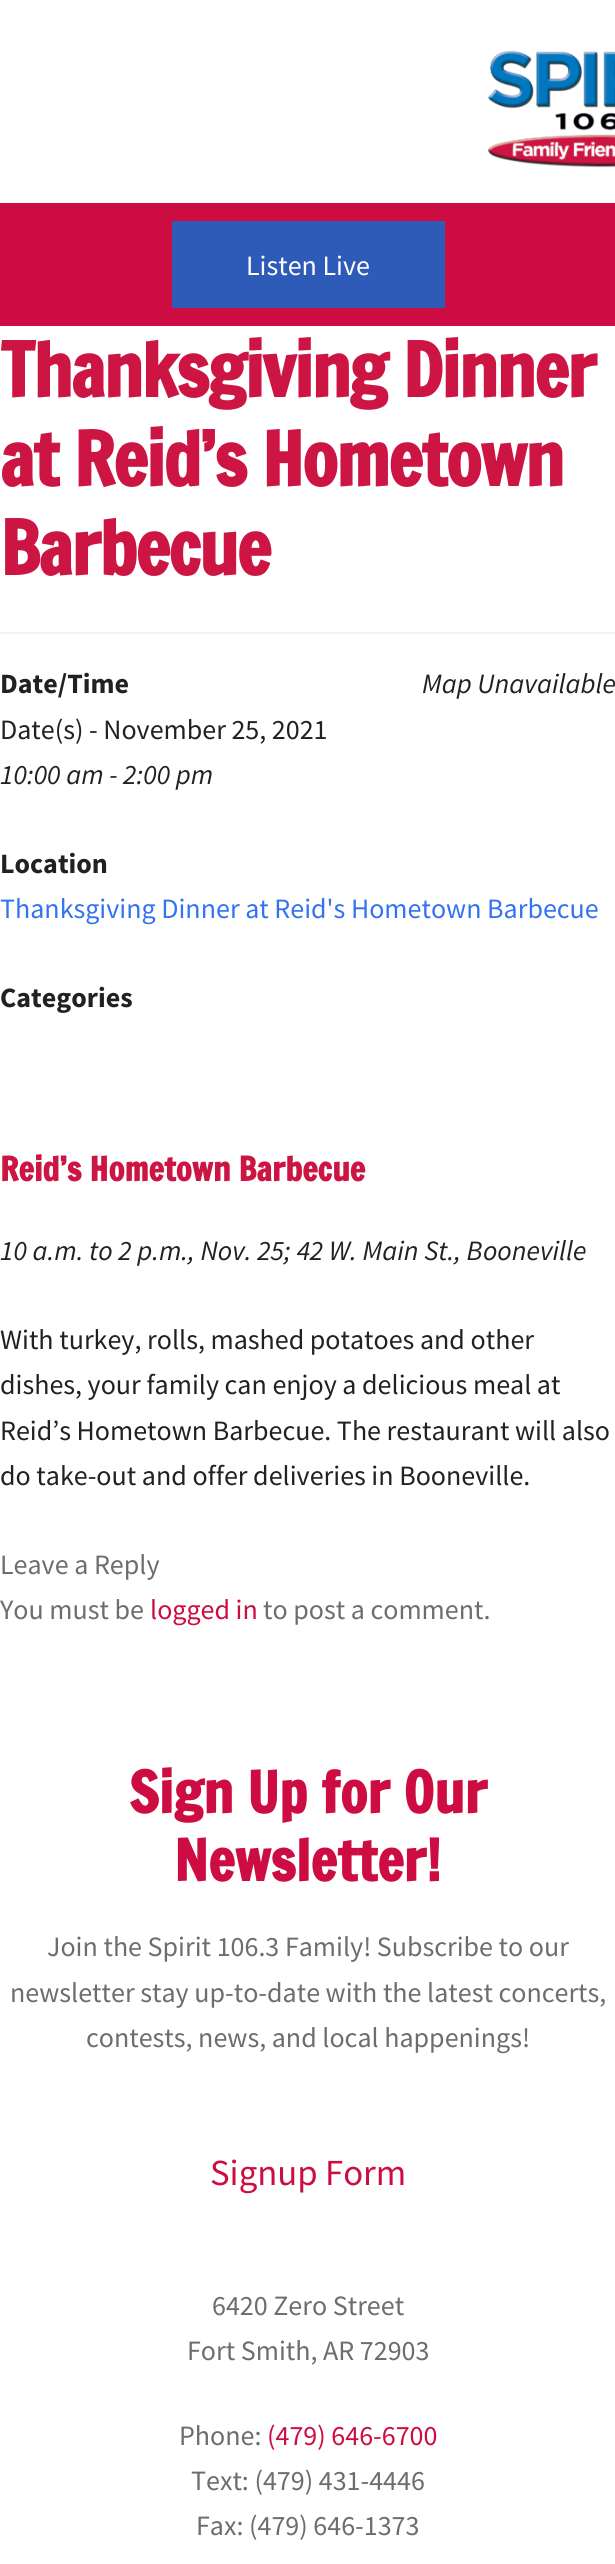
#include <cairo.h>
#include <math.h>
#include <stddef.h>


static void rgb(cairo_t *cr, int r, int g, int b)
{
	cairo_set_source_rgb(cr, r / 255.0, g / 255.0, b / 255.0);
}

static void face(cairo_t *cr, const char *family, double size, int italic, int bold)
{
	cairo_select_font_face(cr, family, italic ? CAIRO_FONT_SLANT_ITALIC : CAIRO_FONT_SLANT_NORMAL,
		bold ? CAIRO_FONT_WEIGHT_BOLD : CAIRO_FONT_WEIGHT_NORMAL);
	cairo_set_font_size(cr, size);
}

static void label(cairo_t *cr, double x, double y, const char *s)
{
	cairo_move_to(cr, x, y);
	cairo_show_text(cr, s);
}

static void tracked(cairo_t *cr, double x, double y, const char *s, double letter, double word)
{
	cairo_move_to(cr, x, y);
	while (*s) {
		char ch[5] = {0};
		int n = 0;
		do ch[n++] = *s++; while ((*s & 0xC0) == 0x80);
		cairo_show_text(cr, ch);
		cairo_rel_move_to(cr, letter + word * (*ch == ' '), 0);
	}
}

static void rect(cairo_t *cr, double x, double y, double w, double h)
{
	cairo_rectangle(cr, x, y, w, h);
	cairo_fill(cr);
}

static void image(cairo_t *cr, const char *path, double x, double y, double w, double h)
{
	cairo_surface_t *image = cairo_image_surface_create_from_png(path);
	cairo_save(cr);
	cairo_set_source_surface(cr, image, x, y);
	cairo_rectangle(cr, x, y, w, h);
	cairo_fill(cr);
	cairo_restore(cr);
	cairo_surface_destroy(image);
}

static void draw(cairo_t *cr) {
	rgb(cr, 255, 255, 255);
	cairo_paint(cr);
	image(cr, "image0.png", 487, 50, 128, 118);
	rgb(cr, 205, 13, 65);
	rect(cr, 0, 203, 615, 123);
	rgb(cr, 47, 91, 184);
	rect(cr, 172, 221, 273, 87);
	face(cr, "Source Sans Pro", 28, 0, 0);
	rgb(cr, 255, 255, 255);
	label(cr, 246, 275, "Listen Live");
	rgb(cr, 242, 242, 242);
	rect(cr, 0, 632, 615, 2);
	face(cr, "Francois One", 73.25, 0, 1);
	rgb(cr, 204, 21, 67);
	tracked(cr, 0, 397, "Thanksgiving Dinner", -1.75, 0);
	tracked(cr, 0, 486, "at Reid’s Hometown", -1.75, 0);
	tracked(cr, 0, 575, "Barbecue", -1.75, 0);
	face(cr, "Source Sans Pro", 28, 0, 1);
	rgb(cr, 33, 33, 33);
	label(cr, 0, 693, "Date/Time");
	face(cr, "Source Sans Pro", 28, 0, 0);
	label(cr, 0, 739, "Date(s) - November 25, 2021");
	face(cr, "Source Sans Pro", 28, 1, 0);
	label(cr, 0, 784, "10:00 am - 2:00 pm");
	label(cr, 422, 693, "Map Unavailable");
	face(cr, "Source Sans Pro", 28, 0, 1);
	label(cr, 0, 873, "Location");
	face(cr, "Source Sans Pro", 28, 0, 0);
	rgb(cr, 51, 114, 240);
	label(cr, 0, 918, "Thanksgiving Dinner at Reid's Hometown Barbecue");
	face(cr, "Source Sans Pro", 28, 0, 1);
	rgb(cr, 33, 33, 33);
	label(cr, 0, 1007, "Categories");
	face(cr, "Francois One", 32.75, 0, 1);
	rgb(cr, 204, 21, 67);
	label(cr, 0, 1181, "Reid’s Hometown Barbecue");
	face(cr, "Source Sans Pro", 28, 1, 0);
	rgb(cr, 33, 33, 33);
	label(cr, 0, 1260, "10 a.m. to 2 p.m., Nov. 25; 42 W. Main St., Booneville");
	face(cr, "Source Sans Pro", 28, 0, 0);
	label(cr, 0, 1349, "With turkey, rolls, mashed potatoes and other");
	label(cr, 0, 1394, "dishes, your family can enjoy a delicious meal at");
	label(cr, 0, 1440, "Reid’s Hometown Barbecue. The restaurant will also");
	label(cr, 0, 1485, "do take-out and offer deliveries in Booneville.");
	rgb(cr, 109, 109, 109);
	label(cr, 0, 1574, "Leave a Reply");
	label(cr, 0, 1619, "You must be");
	rgb(cr, 205, 13, 65);
	label(cr, 150, 1619, "logged in");
	rgb(cr, 109, 109, 109);
	label(cr, 263, 1619, "to post a comment.");
	face(cr, "Francois One", 56, 0, 1);
	rgb(cr, 205, 13, 65);
	label(cr, 129, 1813, "Sign Up for Our");
	label(cr, 174, 1881, "Newsletter!");
	face(cr, "Source Sans Pro", 28, 0, 0);
	rgb(cr, 109, 109, 109);
	label(cr, 47, 1956, "Join the Spirit 106.3 Family! Subscribe to our");
	label(cr, 10, 2002, "newsletter stay up-to-date with the latest concerts,");
	label(cr, 86, 2047, "contests, news, and local happenings!");
	face(cr, "Source Sans Pro", 36.75, 0, 0);
	rgb(cr, 205, 13, 65);
	label(cr, 210, 2185, "Signup Form");
	face(cr, "Source Sans Pro", 28, 0, 0);
	rgb(cr, 109, 109, 109);
	label(cr, 212, 2315, "6420 Zero Street");
	label(cr, 187, 2360, "Fort Smith, AR 72903");
	label(cr, 179, 2445, "Phone:");
	rgb(cr, 205, 13, 65);
	label(cr, 267, 2445, "(479) 646-6700");
	rgb(cr, 109, 109, 109);
	label(cr, 191, 2490, "Text: (479) 431-4446");
	label(cr, 196, 2535, "Fax: (479) 646-1373");
}

int main(void) {
	cairo_surface_t *surface = cairo_image_surface_create(CAIRO_FORMAT_RGB24, 615, 2564);
	cairo_t *cr = cairo_create(surface);
	cairo_font_options_t *options = cairo_font_options_create();
	cairo_font_options_set_hint_metrics(options, CAIRO_HINT_METRICS_OFF);
	cairo_font_options_set_hint_style(options, CAIRO_HINT_STYLE_NONE);
	cairo_set_font_options(cr, options);
	cairo_set_miter_limit(cr, 4);
	draw(cr);
	cairo_surface_write_to_png(surface, "render.png");
	cairo_font_options_destroy(options);
	cairo_destroy(cr);
	cairo_surface_destroy(surface);
	return 0;
}
